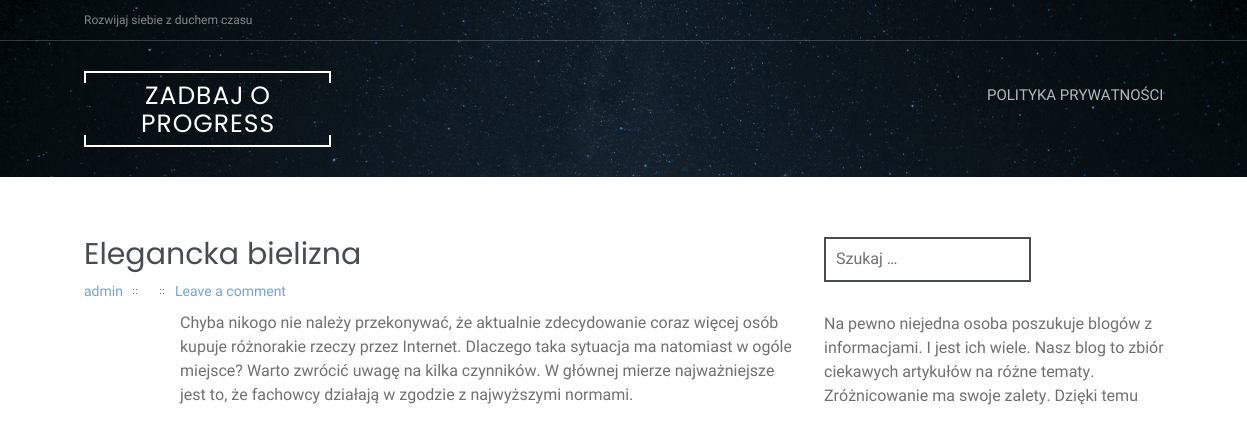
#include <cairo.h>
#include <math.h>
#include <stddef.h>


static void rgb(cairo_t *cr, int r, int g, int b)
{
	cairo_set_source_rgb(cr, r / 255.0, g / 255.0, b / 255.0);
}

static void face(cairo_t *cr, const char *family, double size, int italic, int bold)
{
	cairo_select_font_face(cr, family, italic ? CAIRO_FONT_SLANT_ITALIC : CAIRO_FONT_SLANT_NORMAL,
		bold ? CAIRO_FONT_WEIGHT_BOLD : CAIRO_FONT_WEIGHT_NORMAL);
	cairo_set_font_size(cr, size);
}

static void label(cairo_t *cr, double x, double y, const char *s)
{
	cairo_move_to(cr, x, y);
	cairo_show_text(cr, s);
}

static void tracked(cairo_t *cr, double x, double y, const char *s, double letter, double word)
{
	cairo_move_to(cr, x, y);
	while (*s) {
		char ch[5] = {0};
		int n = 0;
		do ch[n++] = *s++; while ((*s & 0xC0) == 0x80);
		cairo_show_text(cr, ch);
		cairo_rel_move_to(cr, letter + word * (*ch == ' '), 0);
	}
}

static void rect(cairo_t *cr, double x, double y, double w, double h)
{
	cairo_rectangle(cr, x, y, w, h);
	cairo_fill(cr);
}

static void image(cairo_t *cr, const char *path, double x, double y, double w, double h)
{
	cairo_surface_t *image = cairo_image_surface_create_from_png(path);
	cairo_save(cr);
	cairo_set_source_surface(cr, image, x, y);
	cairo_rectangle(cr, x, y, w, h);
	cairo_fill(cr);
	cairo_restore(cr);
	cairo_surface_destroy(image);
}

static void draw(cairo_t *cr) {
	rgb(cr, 255, 255, 255);
	cairo_paint(cr);
	image(cr, "image0.png", 0, 0, 1247, 177);
	cairo_set_source_rgba(cr, 1, 1, 1, 0.2);
	rect(cr, 0, 40, 1247, 1);
	face(cr, "Roboto", 12, 0, 0);
	rgb(cr, 131, 135, 137);
	label(cr, 84, 24, "Rozwijaj siebie z duchem czasu");
	rgb(cr, 255, 255, 255);
	rect(cr, 84, 71, 247, 2);
	rect(cr, 329, 71, 2, 12);
	rect(cr, 84, 71, 2, 12);
	face(cr, "Poppins", 25, 0, 0);
	tracked(cr, 145, 104, "ZADBAJ O", 1, -2);
	tracked(cr, 141, 132, "PROGRESS", 1, 0);
	rect(cr, 329, 135, 2, 12);
	rect(cr, 84, 145, 247, 2);
	rect(cr, 84, 135, 2, 12);
	face(cr, "Roboto", 15, 0, 0);
	rgb(cr, 181, 183, 185);
	label(cr, 987, 100, "POLITYKA PRYWATNOŚCI");
	face(cr, "Poppins", 30, 0, 0);
	rgb(cr, 70, 76, 81);
	label(cr, 84, 264, "Elegancka bielizna");
	face(cr, "Roboto", 14, 0, 0);
	rgb(cr, 117, 163, 209);
	label(cr, 84, 296, "admin");
	face(cr, "Liberation Serif", 11, 0, 0);
	rgb(cr, 112, 112, 112);
	label(cr, 132, 294, "::");
	label(cr, 159, 294, "::");
	face(cr, "Roboto", 14, 0, 0);
	rgb(cr, 117, 163, 209);
	label(cr, 175, 296, "Leave a comment");
	face(cr, "Roboto", 16, 0, 0);
	rgb(cr, 112, 112, 112);
	label(cr, 180, 328, "Chyba nikogo nie należy przekonywać, że aktualnie zdecydowanie coraz więcej osób");
	label(cr, 180, 352, "kupuje różnorakie rzeczy przez Internet. Dlaczego taka sytuacja ma natomiast w ogóle");
	label(cr, 180, 376, "miejsce? Warto zwrócić uwagę na kilka czynników. W głównej mierze najważniejsze");
	label(cr, 180, 400, "jest to, że fachowcy działają w zgodzie z najwyższymi normami.");
	cairo_rectangle(cr, 825, 238, 205, 43);
	rgb(cr, 70, 76, 81);
	cairo_stroke(cr);
	rgb(cr, 112, 112, 112);
	label(cr, 836, 264, "Szukaj …");
	label(cr, 824, 329, "Na pewno niejedna osoba poszukuje blogów z");
	label(cr, 824, 353, "informacjami. I jest ich wiele. Nasz blog to zbiór");
	label(cr, 824, 377, "ciekawych artykułów na różne tematy.");
	label(cr, 824, 401, "Zróżnicowanie ma swoje zalety. Dzięki temu");
}

int main(void) {
	cairo_surface_t *surface = cairo_image_surface_create(CAIRO_FORMAT_RGB24, 1247, 422);
	cairo_t *cr = cairo_create(surface);
	cairo_font_options_t *options = cairo_font_options_create();
	cairo_font_options_set_hint_metrics(options, CAIRO_HINT_METRICS_OFF);
	cairo_font_options_set_hint_style(options, CAIRO_HINT_STYLE_NONE);
	cairo_set_font_options(cr, options);
	cairo_set_miter_limit(cr, 4);
	draw(cr);
	cairo_surface_write_to_png(surface, "render.png");
	cairo_font_options_destroy(options);
	cairo_destroy(cr);
	cairo_surface_destroy(surface);
	return 0;
}
